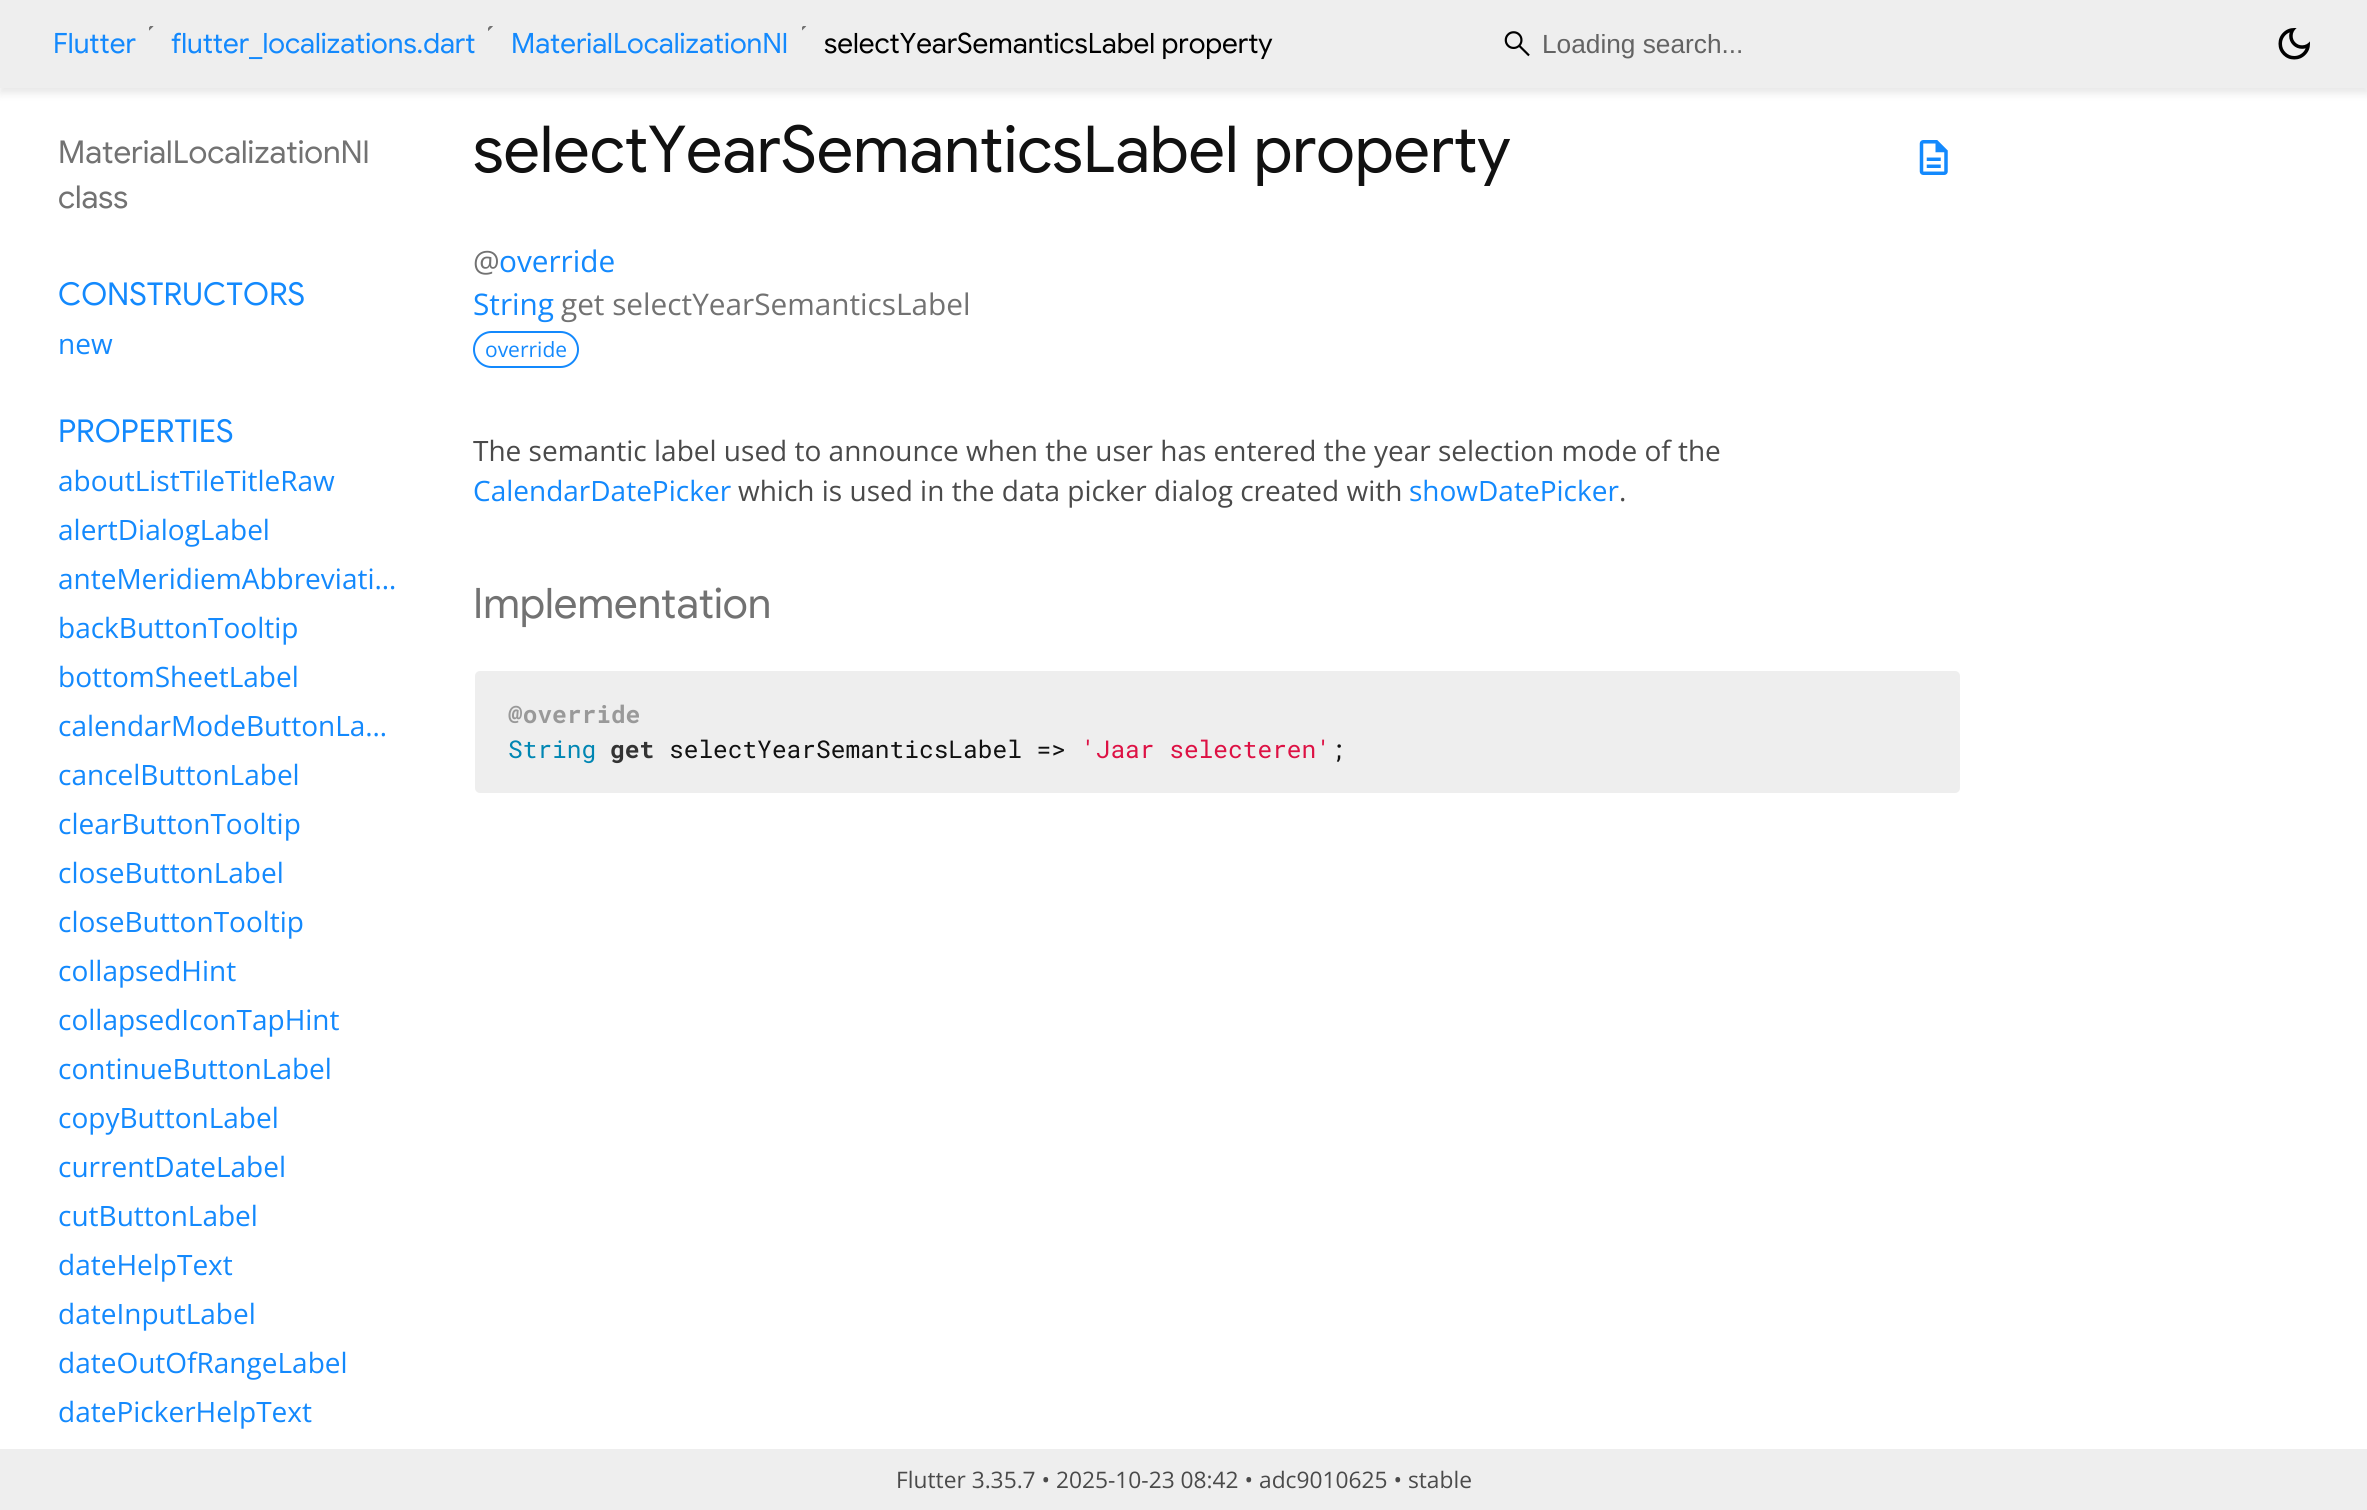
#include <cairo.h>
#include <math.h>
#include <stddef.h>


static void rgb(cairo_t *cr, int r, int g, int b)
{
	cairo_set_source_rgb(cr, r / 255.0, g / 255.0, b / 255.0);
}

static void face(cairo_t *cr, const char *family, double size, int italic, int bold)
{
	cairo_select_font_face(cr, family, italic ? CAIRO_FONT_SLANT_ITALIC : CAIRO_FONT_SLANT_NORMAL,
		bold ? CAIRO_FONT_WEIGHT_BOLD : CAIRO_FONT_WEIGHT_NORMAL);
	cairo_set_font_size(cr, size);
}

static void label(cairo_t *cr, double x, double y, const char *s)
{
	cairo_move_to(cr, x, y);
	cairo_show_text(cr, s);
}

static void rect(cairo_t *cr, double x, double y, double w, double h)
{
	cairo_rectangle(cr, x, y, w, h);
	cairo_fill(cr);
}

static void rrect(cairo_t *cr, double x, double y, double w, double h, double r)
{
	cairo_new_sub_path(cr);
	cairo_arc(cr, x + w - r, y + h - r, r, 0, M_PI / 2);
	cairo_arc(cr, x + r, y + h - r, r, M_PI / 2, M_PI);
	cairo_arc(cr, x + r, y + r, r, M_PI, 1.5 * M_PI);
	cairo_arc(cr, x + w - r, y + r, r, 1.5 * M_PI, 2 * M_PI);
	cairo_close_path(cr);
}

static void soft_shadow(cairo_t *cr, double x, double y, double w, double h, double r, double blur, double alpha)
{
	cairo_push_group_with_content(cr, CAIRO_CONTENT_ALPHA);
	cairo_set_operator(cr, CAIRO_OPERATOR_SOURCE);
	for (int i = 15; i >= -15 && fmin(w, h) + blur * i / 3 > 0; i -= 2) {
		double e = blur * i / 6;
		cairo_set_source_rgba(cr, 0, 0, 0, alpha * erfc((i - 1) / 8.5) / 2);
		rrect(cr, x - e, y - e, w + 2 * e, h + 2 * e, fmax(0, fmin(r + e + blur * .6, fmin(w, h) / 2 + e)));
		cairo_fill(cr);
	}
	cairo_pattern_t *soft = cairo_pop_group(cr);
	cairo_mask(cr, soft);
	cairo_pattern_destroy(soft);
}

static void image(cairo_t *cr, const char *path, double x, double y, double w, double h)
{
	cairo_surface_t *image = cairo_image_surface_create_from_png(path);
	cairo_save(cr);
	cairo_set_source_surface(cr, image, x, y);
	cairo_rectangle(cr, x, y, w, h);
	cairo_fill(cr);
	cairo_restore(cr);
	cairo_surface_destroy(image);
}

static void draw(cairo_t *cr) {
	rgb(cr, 255, 255, 255);
	cairo_paint(cr);
	rgb(cr, 0, 0, 0);
	soft_shadow(cr, 0, 5, 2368, 88, 0, 4.5, 0.1);
	rgb(cr, 238, 238, 238);
	rect(cr, 0, 0, 2367, 88);
	face(cr, "Google Sans", 28, 0, 0);
	rgb(cr, 19, 137, 253);
	label(cr, 53, 53, "Flutter");
	image(cr, "image0.png", 149, 26, 5, 5);
	label(cr, 171, 53, "flutter_localizations.dart");
	image(cr, "image1.png", 488, 26, 5, 5);
	label(cr, 511, 53, "MaterialLocalizationNl");
	image(cr, "image2.png", 802, 26, 5, 5);
	rgb(cr, 0, 0, 0);
	label(cr, 824, 53, "selectYearSemanticsLabel property");
	image(cr, "image3.png", 1504, 31, 26, 26);
	face(cr, "Liberation Sans", 26.25, 0, 0);
	rgb(cr, 99, 99, 99);
	label(cr, 1542, 53, "Loading search...");
	image(cr, "image4.png", 2278, 28, 32, 32);
	face(cr, "Google Sans", 31.5, 0, 0);
	rgb(cr, 114, 114, 114);
	label(cr, 58, 163, "MaterialLocalizationNl");
	label(cr, 58, 208, "class");
	rgb(cr, 19, 137, 253);
	label(cr, 58, 305, "CONSTRUCTORS");
	face(cr, "Open Sans", 28, 0, 0);
	label(cr, 58, 354, "new");
	face(cr, "Google Sans", 31.5, 0, 0);
	label(cr, 58, 442, "PROPERTIES");
	face(cr, "Open Sans", 28, 0, 0);
	label(cr, 58, 491, "aboutListTileTitleRaw");
	label(cr, 58, 540, "alertDialogLabel");
	label(cr, 58, 589, "anteMeridiemAbbreviati…");
	label(cr, 58, 638, "backButtonTooltip");
	label(cr, 58, 687, "bottomSheetLabel");
	label(cr, 58, 736, "calendarModeButtonLa…");
	label(cr, 58, 785, "cancelButtonLabel");
	label(cr, 58, 834, "clearButtonTooltip");
	label(cr, 58, 883, "closeButtonLabel");
	label(cr, 58, 932, "closeButtonTooltip");
	label(cr, 58, 981, "collapsedHint");
	label(cr, 58, 1030, "collapsedIconTapHint");
	label(cr, 58, 1079, "continueButtonLabel");
	label(cr, 58, 1128, "copyButtonLabel");
	label(cr, 58, 1177, "currentDateLabel");
	label(cr, 58, 1226, "cutButtonLabel");
	label(cr, 58, 1275, "dateHelpText");
	label(cr, 58, 1324, "dateInputLabel");
	label(cr, 58, 1373, "dateOutOfRangeLabel");
	label(cr, 58, 1422, "datePickerHelpText");
	face(cr, "Google Sans", 64.75, 0, 0);
	rgb(cr, 17, 17, 17);
	label(cr, 473, 172, "selectYearSemanticsLabel property");
	image(cr, "image5.png", 1919, 140, 29, 35);
	face(cr, "Open Sans", 29.75, 0, 0);
	rgb(cr, 114, 114, 114);
	label(cr, 473, 272, "@");
	rgb(cr, 19, 137, 253);
	label(cr, 499, 272, "override");
	label(cr, 473, 315, "String");
	rgb(cr, 114, 114, 114);
	label(cr, 561, 315, "get selectYearSemanticsLabel");
	rrect(cr, 474, 332, 104, 35, 17.5);
	rgb(cr, 19, 137, 253);
	cairo_stroke(cr);
	face(cr, "Open Sans", 21, 0, 0);
	label(cr, 485, 357, "override");
	face(cr, "Open Sans", 28, 0, 0);
	rgb(cr, 74, 74, 74);
	label(cr, 473, 461, "The semantic label used to announce when the user has entered the year selection mode of the");
	rgb(cr, 19, 137, 253);
	label(cr, 473, 501, "CalendarDatePicker");
	rgb(cr, 74, 74, 74);
	label(cr, 738, 501, "which is used in the data picker dialog created with");
	rgb(cr, 19, 137, 253);
	label(cr, 1409, 501, "showDatePicker");
	rgb(cr, 74, 74, 74);
	label(cr, 1619, 501, ".");
	face(cr, "Google Sans", 42, 0, 0);
	rgb(cr, 114, 114, 114);
	label(cr, 473, 618, "Implementation");
	rgb(cr, 238, 238, 238);
	rrect(cr, 474, 670, 1487, 124, 6);
	cairo_fill_preserve(cr);
	rgb(cr, 255, 255, 255);
	cairo_stroke(cr);
	face(cr, "Roboto Mono", 24.5, 0, 1);
	rgb(cr, 153, 153, 153);
	label(cr, 508, 723, "@override");
	face(cr, "Roboto Mono", 24.5, 0, 0);
	rgb(cr, 0, 134, 179);
	label(cr, 508, 758, "String");
	face(cr, "Roboto Mono", 24.5, 0, 1);
	rgb(cr, 51, 51, 51);
	label(cr, 610, 758, "get");
	face(cr, "Roboto Mono", 24.5, 0, 0);
	rgb(cr, 17, 17, 17);
	label(cr, 669, 758, "selectYearSemanticsLabel =>");
	rgb(cr, 221, 17, 68);
	label(cr, 1081, 758, "'Jaar selecteren'");
	rgb(cr, 17, 17, 17);
	label(cr, 1331, 758, ";");
	rgb(cr, 238, 238, 238);
	rect(cr, 0, 1449, 2367, 61);
	face(cr, "Open Sans", 22.75, 0, 0);
	rgb(cr, 74, 74, 74);
	label(cr, 896, 1488, "Flutter 3.35.7 • 2025-10-23 08:42 • adc9010625 • stable");
}

int main(void) {
	cairo_surface_t *surface = cairo_image_surface_create(CAIRO_FORMAT_RGB24, 2367, 1510);
	cairo_t *cr = cairo_create(surface);
	cairo_font_options_t *options = cairo_font_options_create();
	cairo_font_options_set_hint_metrics(options, CAIRO_HINT_METRICS_OFF);
	cairo_font_options_set_hint_style(options, CAIRO_HINT_STYLE_NONE);
	cairo_set_font_options(cr, options);
	cairo_set_miter_limit(cr, 4);
	draw(cr);
	cairo_surface_write_to_png(surface, "render.png");
	cairo_font_options_destroy(options);
	cairo_destroy(cr);
	cairo_surface_destroy(surface);
	return 0;
}
